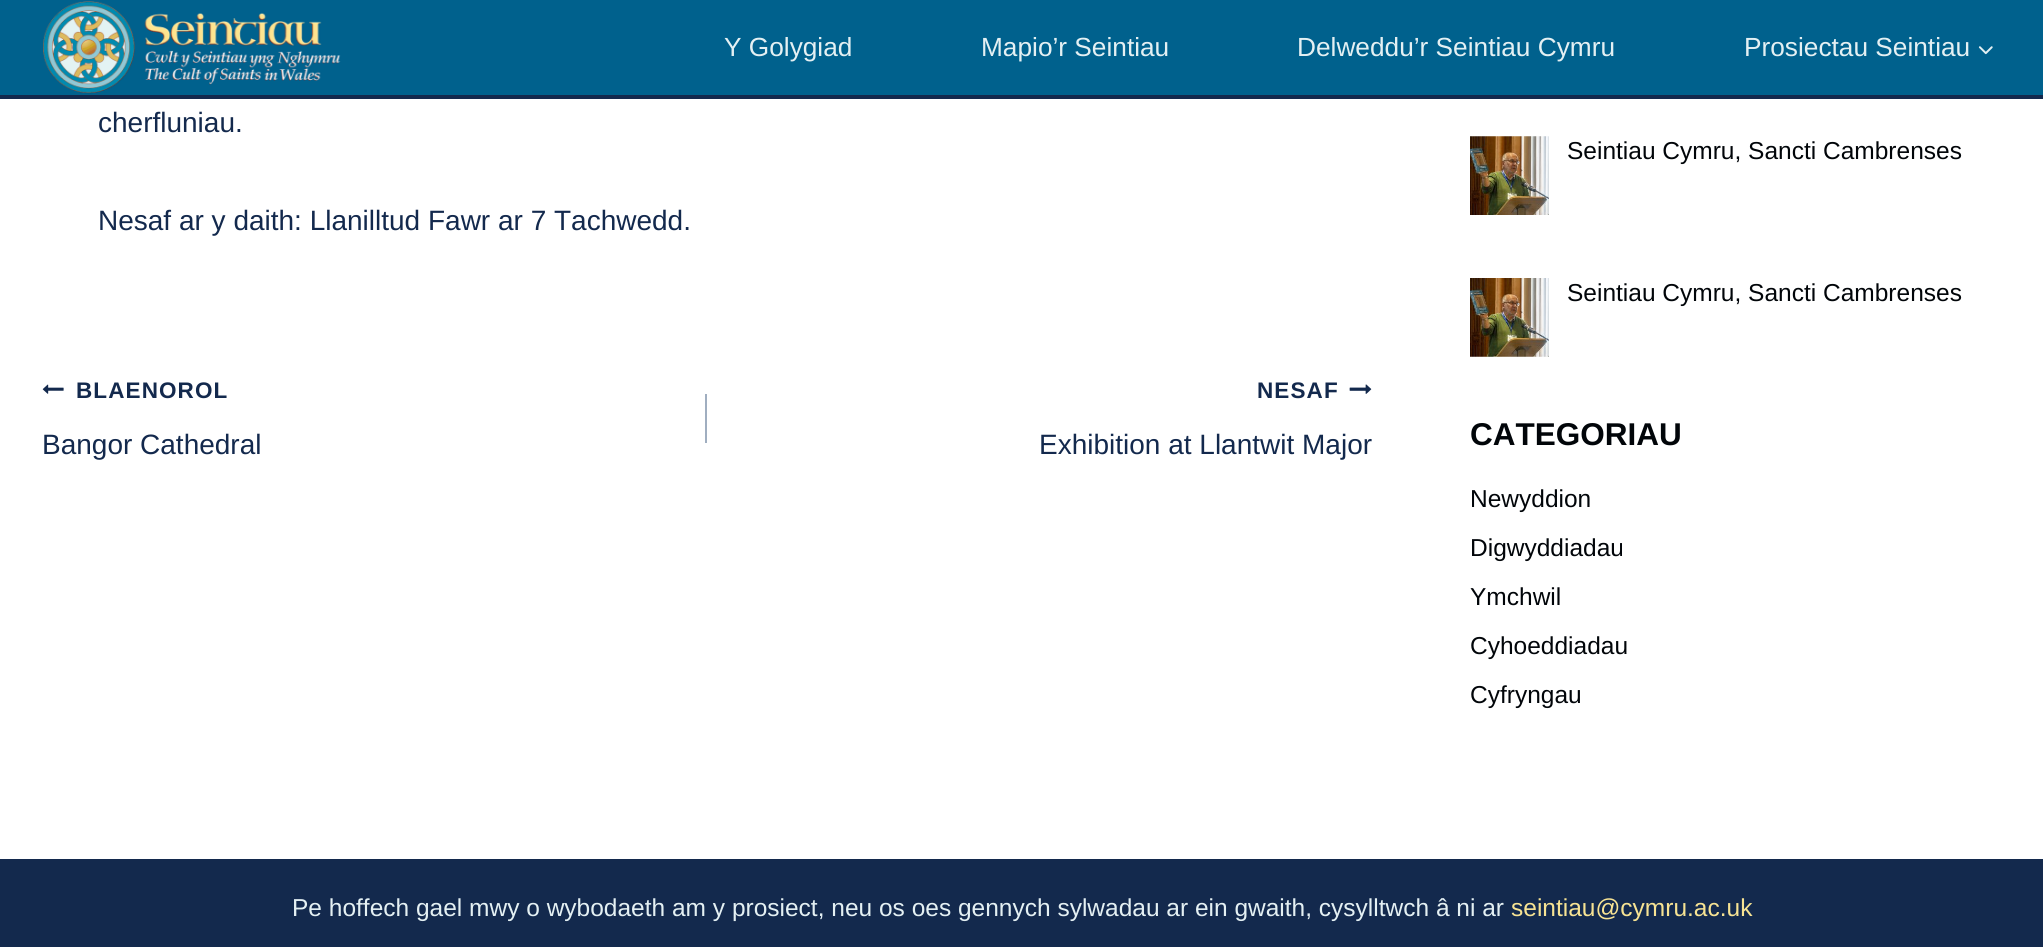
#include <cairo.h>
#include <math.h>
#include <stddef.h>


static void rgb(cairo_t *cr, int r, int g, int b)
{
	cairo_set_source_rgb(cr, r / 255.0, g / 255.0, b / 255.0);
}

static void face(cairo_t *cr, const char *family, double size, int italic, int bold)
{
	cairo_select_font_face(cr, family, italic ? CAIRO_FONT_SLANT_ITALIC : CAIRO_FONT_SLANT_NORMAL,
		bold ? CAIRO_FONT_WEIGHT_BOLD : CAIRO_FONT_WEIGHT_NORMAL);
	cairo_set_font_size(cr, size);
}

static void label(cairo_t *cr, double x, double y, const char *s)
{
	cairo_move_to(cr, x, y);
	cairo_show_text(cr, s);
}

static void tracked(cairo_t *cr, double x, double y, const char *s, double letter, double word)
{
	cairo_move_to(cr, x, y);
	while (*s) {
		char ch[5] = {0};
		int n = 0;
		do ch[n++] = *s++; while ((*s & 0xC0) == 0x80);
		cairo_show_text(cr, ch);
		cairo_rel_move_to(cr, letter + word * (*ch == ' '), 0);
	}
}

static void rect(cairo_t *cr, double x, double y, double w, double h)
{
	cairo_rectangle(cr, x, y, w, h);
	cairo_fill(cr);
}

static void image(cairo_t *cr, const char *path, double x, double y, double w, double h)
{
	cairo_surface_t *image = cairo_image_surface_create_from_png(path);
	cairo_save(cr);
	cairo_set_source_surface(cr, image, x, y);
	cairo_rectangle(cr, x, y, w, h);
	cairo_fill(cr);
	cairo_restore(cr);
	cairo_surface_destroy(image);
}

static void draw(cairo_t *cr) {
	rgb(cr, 255, 255, 255);
	cairo_paint(cr);
	rgb(cr, 0, 97, 141);
	rect(cr, 0, 0, 2043, 95);
	rgb(cr, 19, 41, 77);
	rect(cr, 0, 95, 2043, 4);
	image(cr, "image0.png", 43, 1, 298, 93);
	face(cr, "Liberation Sans", 26.25, 0, 0);
	rgb(cr, 228, 240, 243);
	label(cr, 724, 56, "Y Golygiad");
	label(cr, 981, 56, "Mapio’r Seintiau");
	label(cr, 1297, 56, "Delweddu’r Seintiau Cymru");
	label(cr, 1744, 56, "Prosiectau Seintiau");
	image(cr, "image1.png", 1978, 46, 15, 9);
	face(cr, "Liberation Sans", 28, 0, 0);
	rgb(cr, 19, 41, 77);
	label(cr, 98, 132, "cherfluniau.");
	label(cr, 98, 230, "Nesaf ar y daith: Llanilltud Fawr ar 7 Tachwedd.");
	image(cr, "image2.png", 42, 384, 22, 10);
	face(cr, "Liberation Sans", 22.5, 0, 1);
	tracked(cr, 76, 398, "BLAENOROL", 1.1, 0);
	face(cr, "Liberation Sans", 28, 0, 0);
	label(cr, 42, 454, "Bangor Cathedral");
	rgb(cr, 160, 174, 192);
	rect(cr, 705, 394, 2, 49);
	face(cr, "Liberation Sans", 22.5, 0, 1);
	rgb(cr, 19, 41, 77);
	tracked(cr, 1257, 398, "NESAF", 1.1, 0);
	image(cr, "image3.png", 1349, 384, 23, 10);
	face(cr, "Liberation Sans", 28, 0, 0);
	label(cr, 1039, 454, "Exhibition at Llantwit Major");
	image(cr, "image4.png", 1470, 136, 79, 79);
	face(cr, "Liberation Sans", 24.5, 0, 0);
	rgb(cr, 1, 5, 9);
	label(cr, 1567, 159, "Seintiau Cymru, Sancti Cambrenses");
	image(cr, "image5.png", 1470, 278, 79, 79);
	label(cr, 1567, 301, "Seintiau Cymru, Sancti Cambrenses");
	face(cr, "Liberation Sans", 31.5, 0, 1);
	label(cr, 1470, 445, "CATEGORIAU");
	face(cr, "Liberation Sans", 24.5, 0, 0);
	label(cr, 1470, 507, "Newyddion");
	label(cr, 1470, 556, "Digwyddiadau");
	label(cr, 1470, 605, "Ymchwil");
	label(cr, 1470, 654, "Cyhoeddiadau");
	label(cr, 1470, 703, "Cyfryngau");
	rgb(cr, 19, 41, 77);
	rect(cr, 0, 859, 2043, 88);
	rgb(cr, 228, 240, 243);
	label(cr, 292, 916, "Pe hoffech gael mwy o wybodaeth am y prosiect, neu os oes gennych sylwadau ar ein gwaith, cysylltwch â ni ar");
	rgb(cr, 247, 227, 147);
	label(cr, 1511, 916, "seintiau@cymru.ac.uk");
}

int main(void) {
	cairo_surface_t *surface = cairo_image_surface_create(CAIRO_FORMAT_RGB24, 2043, 947);
	cairo_t *cr = cairo_create(surface);
	cairo_font_options_t *options = cairo_font_options_create();
	cairo_font_options_set_hint_metrics(options, CAIRO_HINT_METRICS_OFF);
	cairo_font_options_set_hint_style(options, CAIRO_HINT_STYLE_NONE);
	cairo_set_font_options(cr, options);
	cairo_set_miter_limit(cr, 4);
	draw(cr);
	cairo_surface_write_to_png(surface, "render.png");
	cairo_font_options_destroy(options);
	cairo_destroy(cr);
	cairo_surface_destroy(surface);
	return 0;
}
